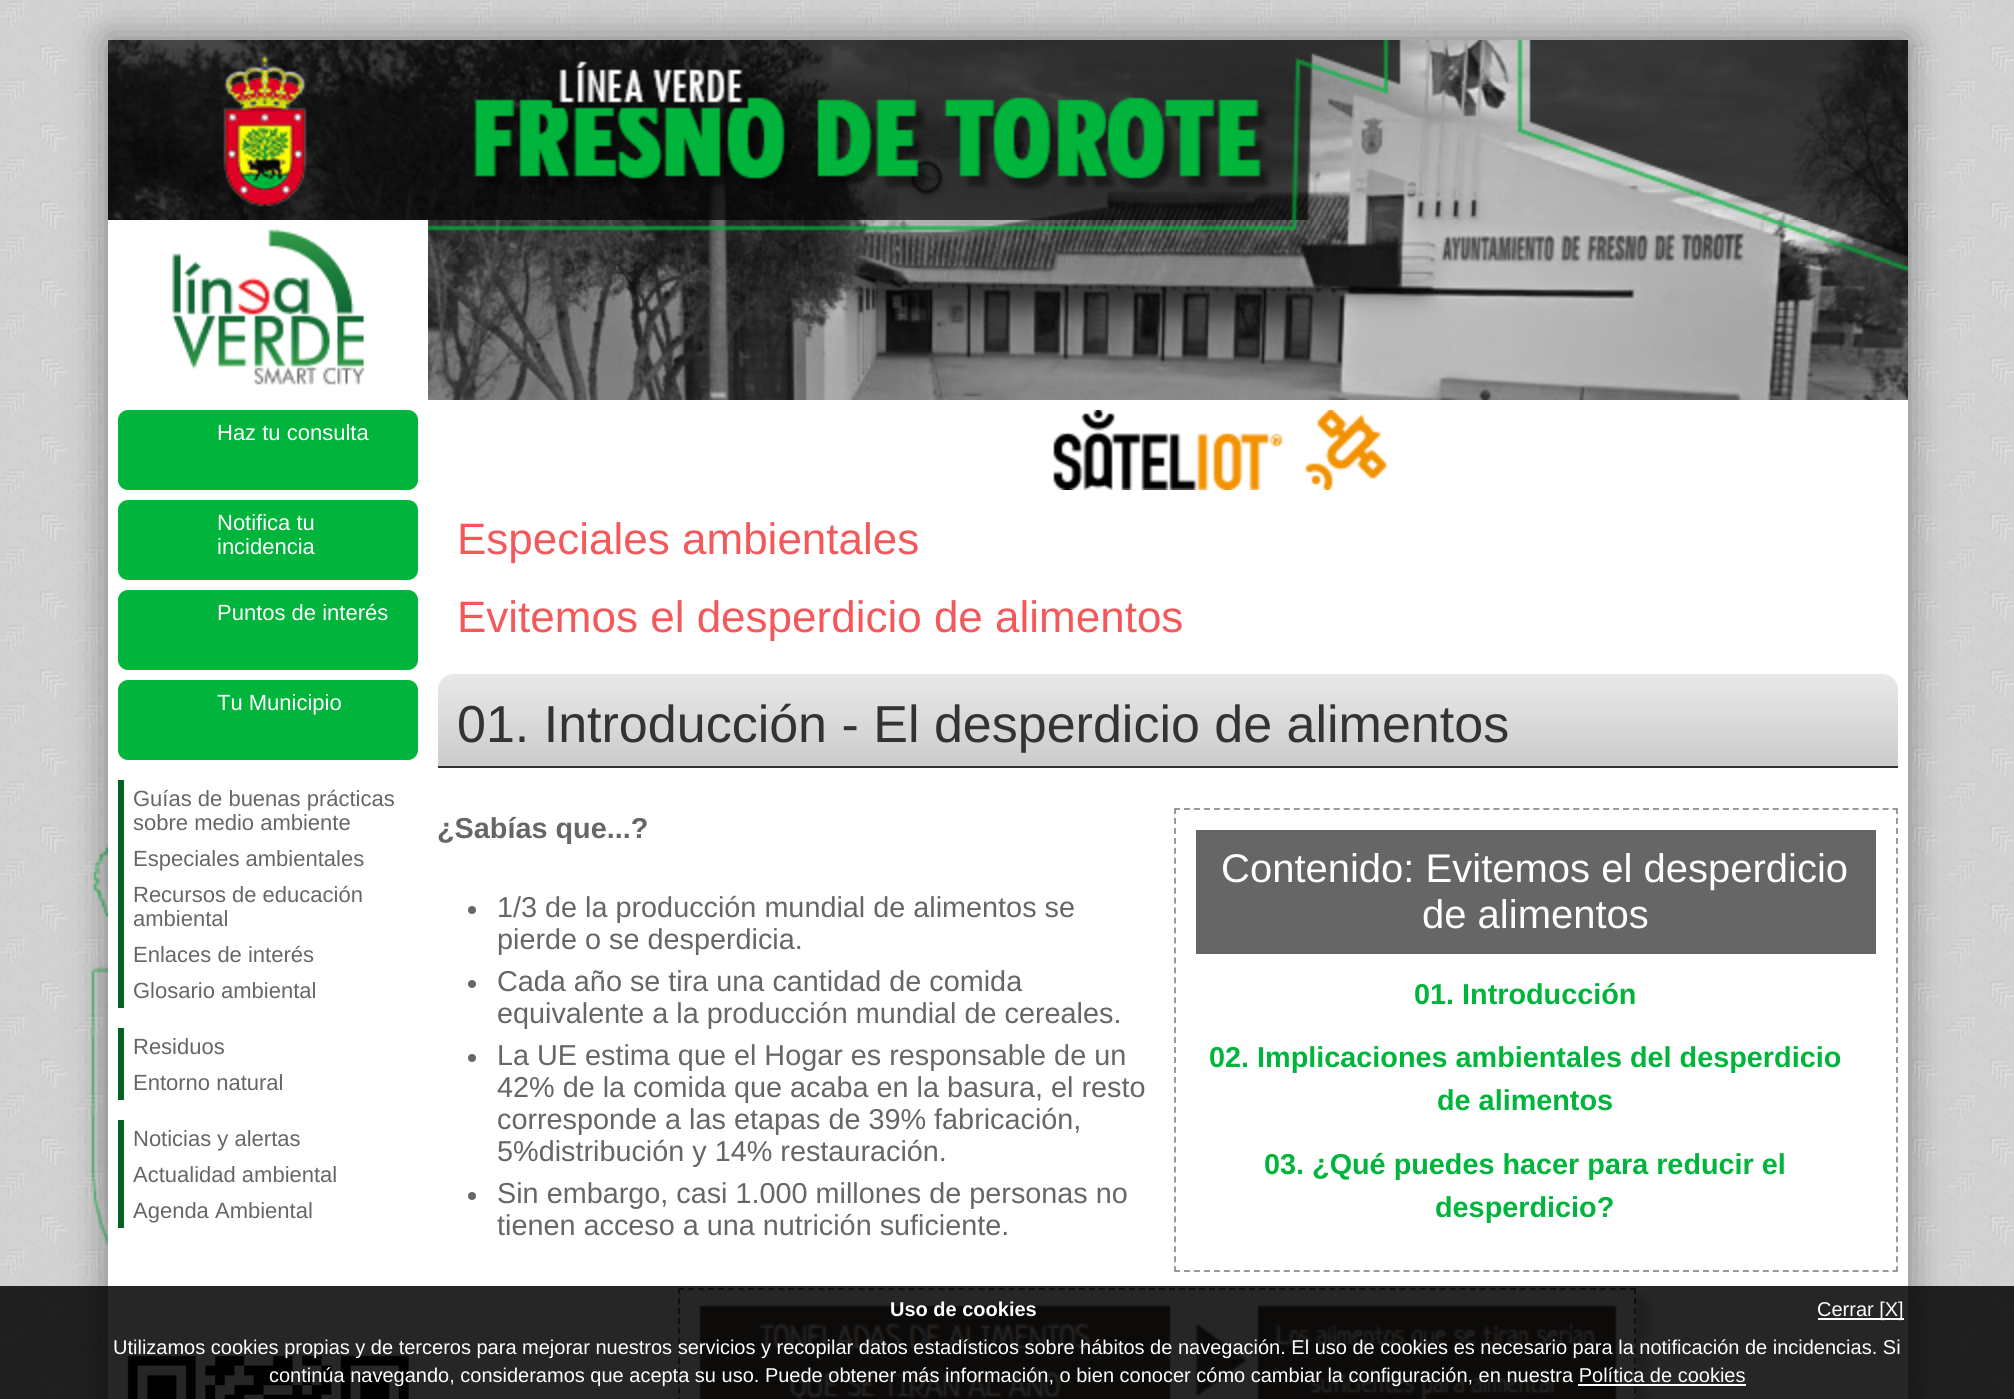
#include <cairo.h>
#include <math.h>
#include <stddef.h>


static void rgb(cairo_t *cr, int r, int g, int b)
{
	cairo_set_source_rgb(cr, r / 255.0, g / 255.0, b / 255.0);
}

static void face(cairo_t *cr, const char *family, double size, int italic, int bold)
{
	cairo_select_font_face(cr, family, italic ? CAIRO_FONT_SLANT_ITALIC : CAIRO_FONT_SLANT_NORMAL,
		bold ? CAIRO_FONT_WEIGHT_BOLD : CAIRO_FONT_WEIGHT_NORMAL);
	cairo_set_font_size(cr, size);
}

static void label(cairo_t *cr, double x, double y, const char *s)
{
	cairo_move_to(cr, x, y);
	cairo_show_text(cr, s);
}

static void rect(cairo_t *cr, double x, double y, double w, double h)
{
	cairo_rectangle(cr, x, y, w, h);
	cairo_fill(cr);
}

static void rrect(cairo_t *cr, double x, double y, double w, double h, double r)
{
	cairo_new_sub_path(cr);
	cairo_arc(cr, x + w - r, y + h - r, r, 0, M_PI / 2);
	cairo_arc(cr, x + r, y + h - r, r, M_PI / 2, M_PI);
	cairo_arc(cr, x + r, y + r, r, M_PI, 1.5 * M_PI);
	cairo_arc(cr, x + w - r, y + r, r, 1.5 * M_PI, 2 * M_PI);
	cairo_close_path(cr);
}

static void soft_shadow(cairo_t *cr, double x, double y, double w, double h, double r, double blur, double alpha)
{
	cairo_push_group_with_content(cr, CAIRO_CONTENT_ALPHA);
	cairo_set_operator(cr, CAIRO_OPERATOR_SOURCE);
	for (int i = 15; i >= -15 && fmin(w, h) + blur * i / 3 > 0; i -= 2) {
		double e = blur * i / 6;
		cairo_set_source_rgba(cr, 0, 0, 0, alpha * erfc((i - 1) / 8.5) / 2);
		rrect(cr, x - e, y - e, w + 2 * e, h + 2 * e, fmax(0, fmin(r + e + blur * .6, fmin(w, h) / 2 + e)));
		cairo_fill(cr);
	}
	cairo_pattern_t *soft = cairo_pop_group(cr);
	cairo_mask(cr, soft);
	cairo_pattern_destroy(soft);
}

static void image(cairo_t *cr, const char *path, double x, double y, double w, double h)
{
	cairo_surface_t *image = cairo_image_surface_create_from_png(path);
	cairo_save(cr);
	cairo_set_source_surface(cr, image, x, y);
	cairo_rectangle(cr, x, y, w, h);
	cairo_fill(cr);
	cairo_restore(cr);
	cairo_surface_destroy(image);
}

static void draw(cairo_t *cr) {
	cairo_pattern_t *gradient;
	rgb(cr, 210, 210, 210);
	cairo_paint(cr);
	image(cr, "image0.png", 0, 0, 2014, 1399);
	rgb(cr, 0, 0, 0);
	soft_shadow(cr, 108, 40, 1800, 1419, 0, 20, 0.4);
	rgb(cr, 255, 255, 255);
	rect(cr, 108, 220, 1800, 1179);
	image(cr, "image1.png", 108, 40, 1800, 180);
	image(cr, "image2.png", 172, 229, 194, 156);
	image(cr, "image3.png", 428, 220, 1480, 180);
	image(cr, "image4.png", 1053, 410, 334, 80);
	rgb(cr, 0, 180, 60);
	rrect(cr, 118, 410, 300, 80, 10);
	cairo_fill(cr);
	face(cr, "Liberation Sans", 22, 0, 0);
	rgb(cr, 255, 255, 255);
	label(cr, 217, 440, "Haz tu consulta");
	rgb(cr, 0, 180, 60);
	rrect(cr, 118, 500, 300, 80, 10);
	cairo_fill(cr);
	rgb(cr, 255, 255, 255);
	label(cr, 217, 530, "Notifica tu");
	label(cr, 217, 554, "incidencia");
	rgb(cr, 0, 180, 60);
	rrect(cr, 118, 590, 300, 80, 10);
	cairo_fill(cr);
	rgb(cr, 255, 255, 255);
	label(cr, 217, 620, "Puntos de interés");
	rgb(cr, 0, 180, 60);
	rrect(cr, 118, 680, 300, 80, 10);
	cairo_fill(cr);
	rgb(cr, 255, 255, 255);
	label(cr, 217, 710, "Tu Municipio");
	rgb(cr, 0, 101, 34);
	rect(cr, 118, 780, 6, 228);
	rgb(cr, 102, 102, 102);
	label(cr, 133, 806, "Guías de buenas prácticas");
	label(cr, 133, 830, "sobre medio ambiente");
	label(cr, 133, 866, "Especiales ambientales");
	label(cr, 133, 902, "Recursos de educación");
	label(cr, 133, 926, "ambiental");
	label(cr, 133, 962, "Enlaces de interés");
	label(cr, 133, 998, "Glosario ambiental");
	rgb(cr, 0, 101, 34);
	rect(cr, 118, 1028, 6, 72);
	rgb(cr, 102, 102, 102);
	label(cr, 133, 1054, "Residuos");
	label(cr, 133, 1090, "Entorno natural");
	rgb(cr, 0, 101, 34);
	rect(cr, 118, 1120, 6, 108);
	rgb(cr, 102, 102, 102);
	label(cr, 133, 1146, "Noticias y alertas");
	label(cr, 133, 1182, "Actualidad ambiental");
	label(cr, 133, 1218, "Agenda Ambiental");
	image(cr, "image5.png", 127, 1355, 282, 44);
	face(cr, "Liberation Sans", 44, 0, 0);
	rgb(cr, 243, 89, 91);
	label(cr, 457, 554, "Especiales ambientales");
	label(cr, 457, 632, "Evitemos el desperdicio de alimentos");
	gradient = cairo_pattern_create_linear(1168, 674, 1168, 766);
	cairo_pattern_add_color_stop_rgba(gradient, 0, 0.91, 0.91, 0.91, 1);
	cairo_pattern_add_color_stop_rgba(gradient, 1, 0.8, 0.8, 0.8, 1);
	cairo_set_source(cr, gradient);
	cairo_pattern_destroy(gradient);
	cairo_new_path(cr);
	cairo_move_to(cr, 454, 674);
	cairo_line_to(cr, 1882, 674);
	cairo_curve_to(cr, 1891, 674, 1898, 681, 1898, 690);
	cairo_line_to(cr, 1898, 766);
	cairo_line_to(cr, 438, 766);
	cairo_line_to(cr, 438, 690);
	cairo_curve_to(cr, 438, 681, 445, 674, 454, 674);
	cairo_close_path(cr);
	cairo_fill(cr);
	rgb(cr, 51, 51, 51);
	rect(cr, 438, 766, 1460, 2);
	face(cr, "Liberation Sans", 52, 0, 0);
	label(cr, 457, 742, "01. Introducción - El desperdicio de alimentos");
	face(cr, "Liberation Sans", 28.8, 0, 1);
	rgb(cr, 102, 102, 102);
	label(cr, 437, 838, "¿Sabías que...?");
	cairo_new_path(cr);
	cairo_arc(cr, 472, 910, 4, 0, 2 * M_PI);
	cairo_fill(cr);
	face(cr, "Liberation Sans", 28.8, 0, 0);
	label(cr, 497, 917, "1/3 de la producción mundial de alimentos se");
	label(cr, 497, 949, "pierde o se desperdicia.");
	cairo_new_path(cr);
	cairo_arc(cr, 472, 984, 4, 0, 2 * M_PI);
	cairo_fill(cr);
	label(cr, 497, 991, "Cada año se tira una cantidad de comida");
	label(cr, 497, 1023, "equivalente a la producción mundial de cereales.");
	cairo_new_path(cr);
	cairo_arc(cr, 472, 1058, 4, 0, 2 * M_PI);
	cairo_fill(cr);
	label(cr, 497, 1065, "La UE estima que el Hogar es responsable de un");
	label(cr, 497, 1097, "42% de la comida que acaba en la basura, el resto");
	label(cr, 497, 1129, "corresponde a las etapas de 39% fabricación,");
	label(cr, 497, 1161, "5%distribución y 14% restauración.");
	cairo_new_path(cr);
	cairo_arc(cr, 472, 1196, 4, 0, 2 * M_PI);
	cairo_fill(cr);
	label(cr, 497, 1203, "Sin embargo, casi 1.000 millones de personas no");
	label(cr, 497, 1235, "tienen acceso a una nutrición suficiente.");
	cairo_new_path(cr);
	cairo_move_to(cr, 1174, 809);
	cairo_line_to(cr, 1898, 809);
	rgb(cr, 153, 153, 153);
	cairo_set_dash(cr, (double[]){6, 3.98}, 2, 0);
	cairo_stroke(cr);
	cairo_new_path(cr);
	cairo_move_to(cr, 1897, 808);
	cairo_line_to(cr, 1897, 1272);
	cairo_set_dash(cr, (double[]){6, 3.96}, 2, 0);
	cairo_stroke(cr);
	cairo_new_path(cr);
	cairo_move_to(cr, 1174, 1271);
	cairo_line_to(cr, 1898, 1271);
	cairo_set_dash(cr, (double[]){6, 3.98}, 2, 0);
	cairo_stroke(cr);
	cairo_new_path(cr);
	cairo_move_to(cr, 1175, 808);
	cairo_line_to(cr, 1175, 1272);
	cairo_set_dash(cr, (double[]){6, 3.96}, 2, 0);
	cairo_stroke(cr);
	rgb(cr, 102, 102, 102);
	rect(cr, 1196, 830, 680, 124);
	face(cr, "Liberation Sans", 40, 0, 0);
	rgb(cr, 255, 255, 255);
	label(cr, 1221, 882, "Contenido: Evitemos el desperdicio");
	label(cr, 1422, 928, "de alimentos");
	face(cr, "Liberation Sans", 28.8, 0, 1);
	rgb(cr, 0, 180, 60);
	label(cr, 1414, 1004, "01. Introducción");
	label(cr, 1209, 1067, "02. Implicaciones ambientales del desperdicio");
	label(cr, 1437, 1110, "de alimentos");
	label(cr, 1264, 1174, "03. ¿Qué puedes hacer para reducir el");
	label(cr, 1435, 1217, "desperdicio?");
	cairo_save(cr);
	cairo_rectangle(cr, 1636, 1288, 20, 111);
	cairo_clip(cr);
	rgb(cr, 204, 204, 204);
	soft_shadow(cr, 688, 1298, 958, 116, 0, 5, 1);
	cairo_restore(cr);
	cairo_new_path(cr);
	cairo_move_to(cr, 678, 1289);
	cairo_line_to(cr, 1636, 1289);
	rgb(cr, 102, 102, 102);
	cairo_set_dash(cr, (double[]){6, 4.02}, 2, 0);
	cairo_stroke(cr);
	cairo_new_path(cr);
	cairo_move_to(cr, 679, 1288);
	cairo_line_to(cr, 679, 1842);
	cairo_set_dash(cr, (double[]){6, 3.96}, 2, 0);
	cairo_stroke(cr);
	image(cr, "image6.png", 699, 1305, 918, 94);
	cairo_new_path(cr);
	cairo_move_to(cr, 1635, 1288);
	cairo_line_to(cr, 1635, 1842);
	cairo_stroke(cr);
	cairo_set_source_rgba(cr, 0, 0, 0, 0.85);
	rect(cr, 0, 1286, 2014, 113);
	face(cr, "Liberation Sans", 20, 0, 1);
	rgb(cr, 255, 255, 255);
	label(cr, 890, 1316, "Uso de cookies");
	rect(cr, 1818, 1318, 86, 2);
	face(cr, "Liberation Sans", 20, 0, 0);
	label(cr, 1817, 1316, "Cerrar [X]");
	label(cr, 113, 1354, "Utilizamos cookies propias y de terceros para mejorar nuestros servicios y recopilar datos estadísticos sobre hábitos de navegación. El uso de cookies es necesario para la notificación de incidencias. Si");
	label(cr, 269, 1382, "continúa navegando, consideramos que acepta su uso. Puede obtener más información, o bien conocer cómo cambiar la configuración, en nuestra Política de cookies");
	rect(cr, 1578, 1384, 168, 2);
}

int main(void) {
	cairo_surface_t *surface = cairo_image_surface_create(CAIRO_FORMAT_RGB24, 2014, 1399);
	cairo_t *cr = cairo_create(surface);
	cairo_font_options_t *options = cairo_font_options_create();
	cairo_font_options_set_hint_metrics(options, CAIRO_HINT_METRICS_OFF);
	cairo_font_options_set_hint_style(options, CAIRO_HINT_STYLE_NONE);
	cairo_set_font_options(cr, options);
	cairo_set_miter_limit(cr, 4);
	draw(cr);
	cairo_surface_write_to_png(surface, "render.png");
	cairo_font_options_destroy(options);
	cairo_destroy(cr);
	cairo_surface_destroy(surface);
	return 0;
}
